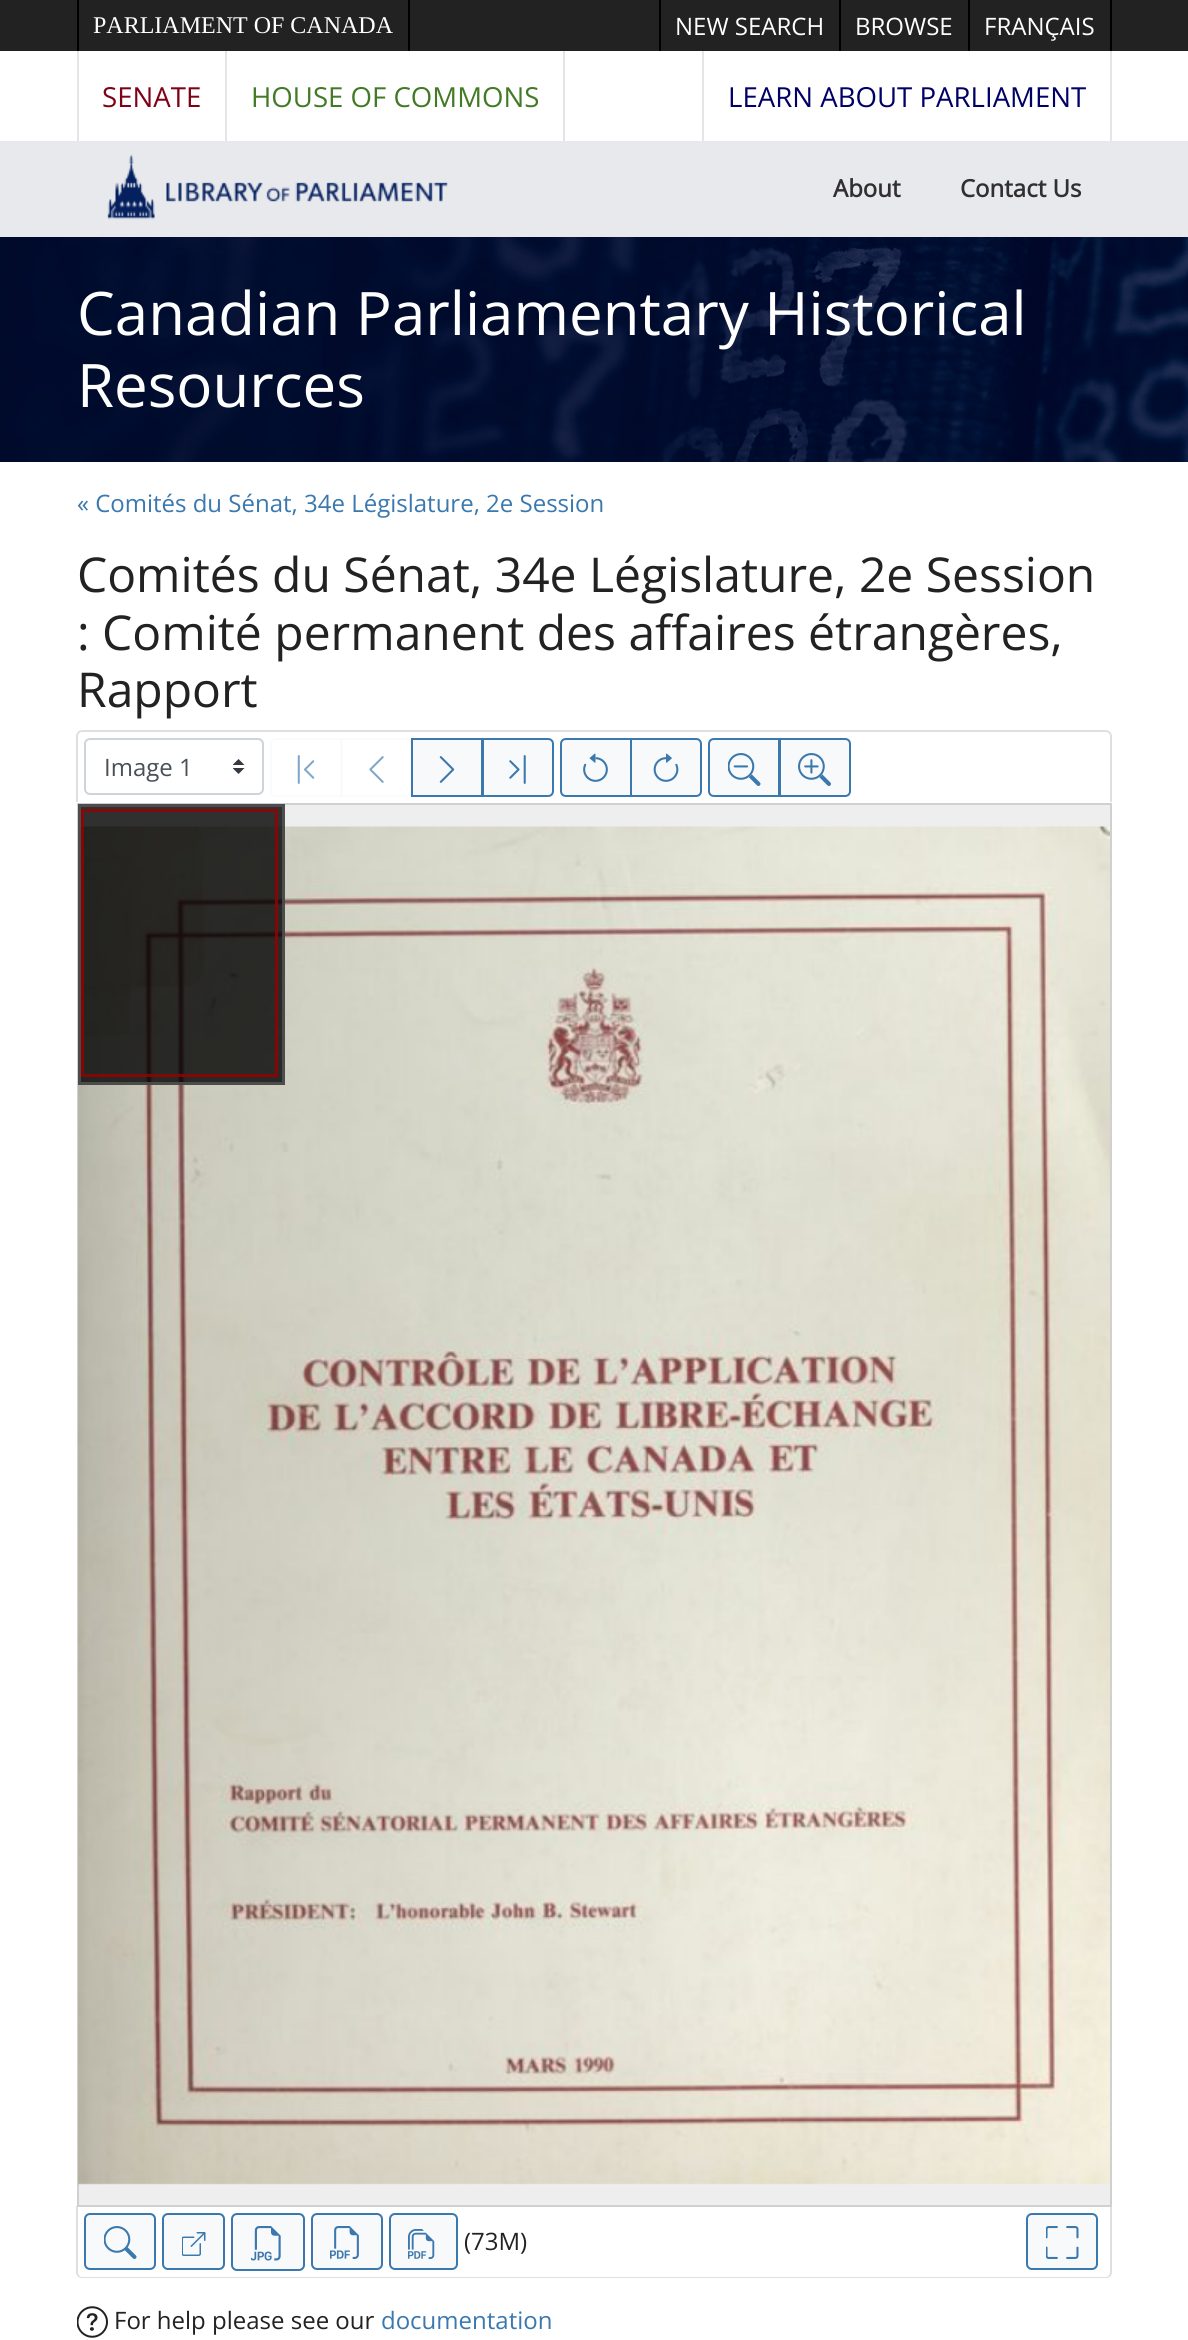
#include <cairo.h>
#include <math.h>
#include <stddef.h>


static void rgb(cairo_t *cr, int r, int g, int b)
{
	cairo_set_source_rgb(cr, r / 255.0, g / 255.0, b / 255.0);
}

static void face(cairo_t *cr, const char *family, double size, int italic, int bold)
{
	cairo_select_font_face(cr, family, italic ? CAIRO_FONT_SLANT_ITALIC : CAIRO_FONT_SLANT_NORMAL,
		bold ? CAIRO_FONT_WEIGHT_BOLD : CAIRO_FONT_WEIGHT_NORMAL);
	cairo_set_font_size(cr, size);
}

static void label(cairo_t *cr, double x, double y, const char *s)
{
	cairo_move_to(cr, x, y);
	cairo_show_text(cr, s);
}

static void rect(cairo_t *cr, double x, double y, double w, double h)
{
	cairo_rectangle(cr, x, y, w, h);
	cairo_fill(cr);
}

static void rrect(cairo_t *cr, double x, double y, double w, double h, double r)
{
	cairo_new_sub_path(cr);
	cairo_arc(cr, x + w - r, y + h - r, r, 0, M_PI / 2);
	cairo_arc(cr, x + r, y + h - r, r, M_PI / 2, M_PI);
	cairo_arc(cr, x + r, y + r, r, M_PI, 1.5 * M_PI);
	cairo_arc(cr, x + w - r, y + r, r, 1.5 * M_PI, 2 * M_PI);
	cairo_close_path(cr);
}

static void image(cairo_t *cr, const char *path, double x, double y, double w, double h)
{
	cairo_surface_t *image = cairo_image_surface_create_from_png(path);
	cairo_save(cr);
	cairo_set_source_surface(cr, image, x, y);
	cairo_rectangle(cr, x, y, w, h);
	cairo_fill(cr);
	cairo_restore(cr);
	cairo_surface_destroy(image);
}

static void draw(cairo_t *cr) {
	rgb(cr, 255, 255, 255);
	cairo_paint(cr);
	rgb(cr, 34, 34, 34);
	rect(cr, 0, 0, 1188, 51);
	rgb(cr, 0, 0, 0);
	rect(cr, 408, 0, 2, 51);
	rect(cr, 77, 0, 2, 51);
	face(cr, "Liberation Serif", 24, 0, 0);
	rgb(cr, 255, 255, 255);
	label(cr, 93, 33, "PARLIAMENT OF CANADA");
	rgb(cr, 0, 0, 0);
	rect(cr, 839, 0, 2, 51);
	rect(cr, 659, 0, 2, 51);
	face(cr, "Open Sans", 24, 0, 0);
	rgb(cr, 255, 255, 255);
	label(cr, 675, 35, "NEW SEARCH");
	rgb(cr, 0, 0, 0);
	rect(cr, 968, 0, 2, 51);
	rgb(cr, 255, 255, 255);
	label(cr, 855, 35, "BROWSE");
	rgb(cr, 0, 0, 0);
	rect(cr, 1110, 0, 2, 51);
	rgb(cr, 255, 255, 255);
	label(cr, 984, 35, "FRANÇAIS");
	rgb(cr, 229, 229, 229);
	rect(cr, 225, 51, 2, 90);
	rect(cr, 77, 51, 2, 90);
	face(cr, "Open Sans", 27.6, 0, 0);
	rgb(cr, 127, 1, 22);
	label(cr, 102, 107, "SENATE");
	rgb(cr, 229, 229, 229);
	rect(cr, 563, 51, 2, 90);
	rgb(cr, 66, 122, 38);
	label(cr, 251, 107, "HOUSE OF COMMONS");
	rgb(cr, 229, 229, 229);
	rect(cr, 1110, 51, 2, 90);
	rect(cr, 702, 51, 2, 90);
	rgb(cr, 0, 0, 102);
	label(cr, 728, 107, "LEARN ABOUT PARLIAMENT");
	rgb(cr, 231, 233, 236);
	rect(cr, 0, 141, 1188, 96);
	image(cr, "image0.png", 107, 154, 341, 66);
	face(cr, "Open Sans", 24, 0, 1);
	rgb(cr, 50, 47, 49);
	label(cr, 833, 197, "About");
	label(cr, 960, 197, "Contact Us");
	image(cr, "image1.png", 0, 237, 1188, 225);
	face(cr, "Open Sans", 60, 0, 0);
	rgb(cr, 255, 255, 255);
	label(cr, 77, 335, "Canadian Parliamentary Historical");
	label(cr, 77, 407, "Resources");
	face(cr, "Open Sans", 24, 0, 0);
	rgb(cr, 58, 120, 174);
	label(cr, 77, 512, "« Comités du Sénat, 34e Législature, 2e Session");
	face(cr, "Open Sans", 48, 0, 0);
	rgb(cr, 34, 34, 34);
	label(cr, 77, 592, "Comités du Sénat, 34e Législature, 2e Session");
	label(cr, 77, 650, ": Comité permanent des affaires étrangères,");
	label(cr, 77, 707, "Rapport");
	rgb(cr, 223, 223, 223);
	cairo_set_fill_rule(cr, CAIRO_FILL_RULE_EVEN_ODD);
	cairo_new_path(cr);
	cairo_move_to(cr, 82, 730);
	cairo_line_to(cr, 1106, 730);
	cairo_curve_to(cr, 1109, 730, 1112, 733, 1112, 736);
	cairo_line_to(cr, 1112, 802);
	cairo_line_to(cr, 76, 802);
	cairo_line_to(cr, 76, 736);
	cairo_curve_to(cr, 76, 733, 79, 730, 82, 730);
	cairo_close_path(cr);
	cairo_move_to(cr, 82, 732);
	cairo_line_to(cr, 1106, 732);
	cairo_curve_to(cr, 1108, 732, 1110, 734, 1110, 736);
	cairo_line_to(cr, 1110, 802);
	cairo_line_to(cr, 78, 802);
	cairo_line_to(cr, 78, 736);
	cairo_curve_to(cr, 78, 734, 80, 732, 82, 732);
	cairo_close_path(cr);
	cairo_fill(cr);
	image(cr, "image2.png", 233, 759, 12, 15);
	rrect(cr, 85, 739, 178, 55, 5);
	rgb(cr, 206, 212, 218);
	cairo_stroke(cr);
	face(cr, "Open Sans", 24, 0, 0);
	rgb(cr, 73, 80, 87);
	label(cr, 104, 776, "Image 1");
	cairo_new_path(cr);
	cairo_move_to(cr, 276, 739);
	cairo_line_to(cr, 341, 739);
	cairo_line_to(cr, 341, 796);
	cairo_line_to(cr, 276, 796);
	cairo_curve_to(cr, 273, 796, 271, 794, 271, 791);
	cairo_line_to(cr, 271, 744);
	cairo_curve_to(cr, 271, 741, 273, 739, 276, 739);
	cairo_close_path(cr);
	rgb(cr, 250, 251, 252);
	cairo_stroke(cr);
	image(cr, "image3.png", 297, 755, 18, 29);
	cairo_rectangle(cr, 342, 739, 70, 57);
	cairo_set_source_rgba(cr, 0.973, 0.976, 0.98, 0.65);
	cairo_stroke(cr);
	image(cr, "image4.png", 369, 756, 15, 27);
	rgb(cr, 248, 249, 250);
	cairo_rectangle(cr, 412, 739, 70, 57);
	cairo_fill_preserve(cr);
	rgb(cr, 58, 120, 174);
	cairo_stroke(cr);
	image(cr, "image5.png", 439, 756, 16, 27);
	rgb(cr, 248, 249, 250);
	cairo_new_path(cr);
	cairo_move_to(cr, 483, 739);
	cairo_line_to(cr, 548, 739);
	cairo_curve_to(cr, 551, 739, 553, 741, 553, 744);
	cairo_line_to(cr, 553, 791);
	cairo_curve_to(cr, 553, 794, 551, 796, 548, 796);
	cairo_line_to(cr, 483, 796);
	cairo_close_path(cr);
	cairo_fill_preserve(cr);
	rgb(cr, 58, 120, 174);
	cairo_stroke(cr);
	image(cr, "image6.png", 509, 755, 17, 29);
	rgb(cr, 248, 249, 250);
	cairo_new_path(cr);
	cairo_move_to(cr, 566, 739);
	cairo_line_to(cr, 631, 739);
	cairo_line_to(cr, 631, 796);
	cairo_line_to(cr, 566, 796);
	cairo_curve_to(cr, 563, 796, 561, 794, 561, 791);
	cairo_line_to(cr, 561, 744);
	cairo_curve_to(cr, 561, 741, 563, 739, 566, 739);
	cairo_close_path(cr);
	cairo_fill_preserve(cr);
	rgb(cr, 58, 120, 174);
	cairo_stroke(cr);
	image(cr, "image7.png", 583, 753, 25, 29);
	rgb(cr, 248, 249, 250);
	cairo_new_path(cr);
	cairo_move_to(cr, 631, 739);
	cairo_line_to(cr, 696, 739);
	cairo_curve_to(cr, 699, 739, 701, 741, 701, 744);
	cairo_line_to(cr, 701, 791);
	cairo_curve_to(cr, 701, 794, 699, 796, 696, 796);
	cairo_line_to(cr, 631, 796);
	cairo_close_path(cr);
	cairo_fill_preserve(cr);
	rgb(cr, 58, 120, 174);
	cairo_stroke(cr);
	image(cr, "image8.png", 653, 753, 26, 29);
	rgb(cr, 248, 249, 250);
	cairo_new_path(cr);
	cairo_move_to(cr, 714, 739);
	cairo_line_to(cr, 779, 739);
	cairo_line_to(cr, 779, 796);
	cairo_line_to(cr, 714, 796);
	cairo_curve_to(cr, 711, 796, 709, 794, 709, 791);
	cairo_line_to(cr, 709, 744);
	cairo_curve_to(cr, 709, 741, 711, 739, 714, 739);
	cairo_close_path(cr);
	cairo_fill_preserve(cr);
	rgb(cr, 58, 120, 174);
	cairo_stroke(cr);
	image(cr, "image9.png", 728, 753, 33, 33);
	rgb(cr, 248, 249, 250);
	cairo_new_path(cr);
	cairo_move_to(cr, 780, 739);
	cairo_line_to(cr, 845, 739);
	cairo_curve_to(cr, 848, 739, 850, 741, 850, 744);
	cairo_line_to(cr, 850, 791);
	cairo_curve_to(cr, 850, 794, 848, 796, 845, 796);
	cairo_line_to(cr, 780, 796);
	cairo_close_path(cr);
	cairo_fill_preserve(cr);
	rgb(cr, 58, 120, 174);
	cairo_stroke(cr);
	image(cr, "image10.png", 798, 753, 33, 33);
	rgb(cr, 223, 223, 223);
	cairo_new_path(cr);
	cairo_move_to(cr, 76, 2206);
	cairo_line_to(cr, 1112, 2206);
	cairo_line_to(cr, 1112, 2272);
	cairo_curve_to(cr, 1112, 2276, 1109, 2278, 1106, 2278);
	cairo_line_to(cr, 82, 2278);
	cairo_curve_to(cr, 79, 2278, 76, 2276, 76, 2272);
	cairo_close_path(cr);
	cairo_move_to(cr, 78, 2206);
	cairo_line_to(cr, 1110, 2206);
	cairo_line_to(cr, 1110, 2272);
	cairo_curve_to(cr, 1110, 2275, 1108, 2277, 1106, 2277);
	cairo_line_to(cr, 82, 2277);
	cairo_curve_to(cr, 80, 2277, 78, 2275, 78, 2272);
	cairo_close_path(cr);
	cairo_fill(cr);
	rgb(cr, 238, 238, 238);
	cairo_rectangle(cr, 78, 804, 1033, 1402);
	cairo_fill_preserve(cr);
	rgb(cr, 208, 208, 208);
	cairo_stroke(cr);
	image(cr, "image11.png", 78, 826, 1032, 1359);
	cairo_set_source_rgba(cr, 0, 0, 0, 0.8);
	rect(cr, 78, 804, 207, 281);
	cairo_rectangle(cr, 79.5, 805.5, 204, 278);
	cairo_set_source_rgba(cr, 0.333, 0.333, 0.333, 0.8);
	cairo_set_line_width(cr, 3);
	cairo_stroke(cr);
	cairo_rectangle(cr, 82.5, 810.5, 194, 265);
	cairo_set_source_rgba(cr, 0.6, 0, 0, 0.8);
	cairo_stroke(cr);
	rgb(cr, 248, 249, 250);
	rrect(cr, 85, 2214, 70, 55, 5);
	cairo_fill_preserve(cr);
	rgb(cr, 58, 120, 174);
	cairo_set_line_width(cr, 2);
	cairo_stroke(cr);
	image(cr, "image12.png", 104, 2226, 33, 33);
	rgb(cr, 248, 249, 250);
	rrect(cr, 163, 2214, 61, 55, 5);
	cairo_fill_preserve(cr);
	rgb(cr, 58, 120, 174);
	cairo_stroke(cr);
	image(cr, "image13.png", 182, 2232, 24, 24);
	rgb(cr, 248, 249, 250);
	rrect(cr, 232, 2214, 72, 56, 5);
	cairo_fill_preserve(cr);
	rgb(cr, 58, 120, 174);
	cairo_stroke(cr);
	image(cr, "image14.png", 251, 2226, 30, 35);
	rgb(cr, 248, 249, 250);
	rrect(cr, 312, 2214, 70, 55, 5);
	cairo_fill_preserve(cr);
	rgb(cr, 58, 120, 174);
	cairo_stroke(cr);
	image(cr, "image15.png", 330, 2226, 29, 33);
	rgb(cr, 248, 249, 250);
	rrect(cr, 390, 2214, 67, 55, 5);
	cairo_fill_preserve(cr);
	rgb(cr, 58, 120, 174);
	cairo_stroke(cr);
	image(cr, "image16.png", 408, 2229, 27, 30);
	rgb(cr, 34, 34, 34);
	label(cr, 464, 2250, "(73M)");
	rgb(cr, 248, 249, 250);
	rrect(cr, 1027, 2214, 70, 55, 5);
	cairo_fill_preserve(cr);
	rgb(cr, 58, 120, 174);
	cairo_stroke(cr);
	image(cr, "image17.png", 1046, 2226, 33, 33);
	image(cr, "image18.png", 77, 2306, 31, 32);
	rgb(cr, 34, 34, 34);
	label(cr, 114, 2329, "For help please see our");
	rgb(cr, 58, 120, 174);
	label(cr, 381, 2329, "documentation");
}

int main(void) {
	cairo_surface_t *surface = cairo_image_surface_create(CAIRO_FORMAT_RGB24, 1188, 2340);
	cairo_t *cr = cairo_create(surface);
	cairo_font_options_t *options = cairo_font_options_create();
	cairo_font_options_set_hint_metrics(options, CAIRO_HINT_METRICS_OFF);
	cairo_font_options_set_hint_style(options, CAIRO_HINT_STYLE_NONE);
	cairo_set_font_options(cr, options);
	cairo_set_miter_limit(cr, 4);
	draw(cr);
	cairo_surface_write_to_png(surface, "render.png");
	cairo_font_options_destroy(options);
	cairo_destroy(cr);
	cairo_surface_destroy(surface);
	return 0;
}
